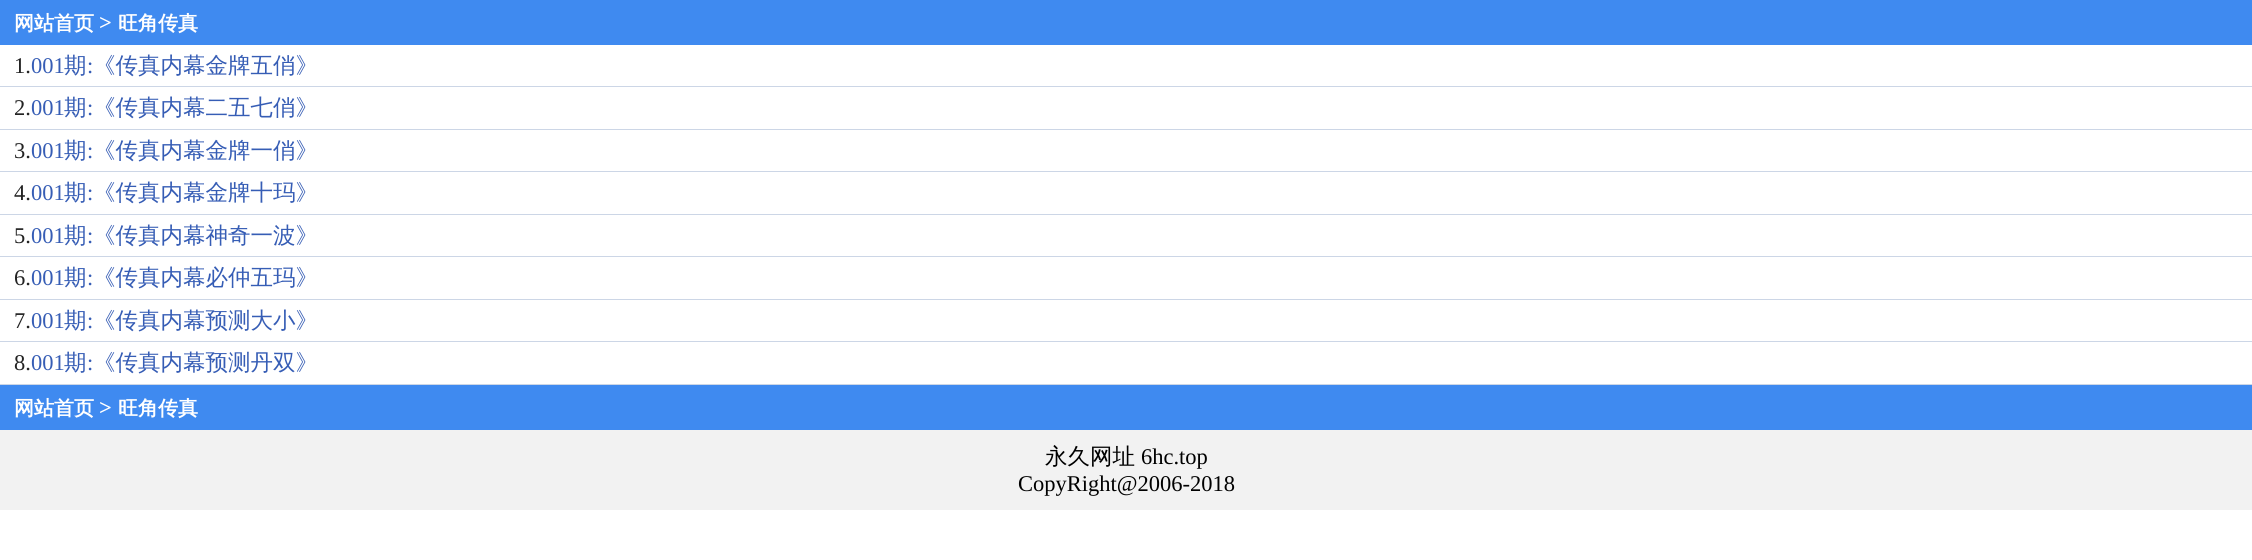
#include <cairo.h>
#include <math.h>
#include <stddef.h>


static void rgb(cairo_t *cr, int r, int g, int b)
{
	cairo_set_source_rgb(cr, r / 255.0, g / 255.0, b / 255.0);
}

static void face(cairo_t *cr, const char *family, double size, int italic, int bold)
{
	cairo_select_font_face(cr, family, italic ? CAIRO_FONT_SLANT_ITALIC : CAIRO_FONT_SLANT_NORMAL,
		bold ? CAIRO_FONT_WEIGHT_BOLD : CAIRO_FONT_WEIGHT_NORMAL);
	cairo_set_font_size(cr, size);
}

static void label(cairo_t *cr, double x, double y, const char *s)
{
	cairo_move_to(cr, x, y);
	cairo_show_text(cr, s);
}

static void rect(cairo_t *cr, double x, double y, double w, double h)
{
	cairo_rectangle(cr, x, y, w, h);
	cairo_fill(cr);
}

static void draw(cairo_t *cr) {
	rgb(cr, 255, 255, 255);
	cairo_paint(cr);
	rgb(cr, 63, 138, 240);
	rect(cr, 0, 0, 2252, 45);
	face(cr, "WenQuanYi Zen Hei", 20, 0, 1);
	rgb(cr, 255, 255, 255);
	label(cr, 14, 30, "网站首页");
	face(cr, "Liberation Serif", 22.5, 0, 1);
	label(cr, 99, 30, ">");
	face(cr, "WenQuanYi Zen Hei", 20, 0, 1);
	label(cr, 118, 30, "旺角传真");
	rgb(cr, 204, 214, 230);
	rect(cr, 0, 86, 2252, 1);
	face(cr, "Liberation Serif", 22.5, 0, 0);
	rgb(cr, 35, 35, 35);
	label(cr, 14, 73, "1.");
	rgb(cr, 54, 93, 181);
	label(cr, 31, 73, "001");
	face(cr, "WenQuanYi Zen Hei Medium", 22.5, 0, 0);
	label(cr, 64, 73, "期");
	face(cr, "Liberation Serif", 22.5, 0, 0);
	label(cr, 87, 73, ":");
	face(cr, "WenQuanYi Zen Hei Medium", 22.5, 0, 0);
	label(cr, 93, 73, "《传真内幕金牌五俏》");
	rgb(cr, 204, 214, 230);
	rect(cr, 0, 129, 2252, 1);
	face(cr, "Liberation Serif", 22.5, 0, 0);
	rgb(cr, 35, 35, 35);
	label(cr, 14, 115, "2.");
	rgb(cr, 54, 93, 181);
	label(cr, 31, 115, "001");
	face(cr, "WenQuanYi Zen Hei Medium", 22.5, 0, 0);
	label(cr, 64, 115, "期");
	face(cr, "Liberation Serif", 22.5, 0, 0);
	label(cr, 87, 115, ":");
	face(cr, "WenQuanYi Zen Hei Medium", 22.5, 0, 0);
	label(cr, 93, 115, "《传真内幕二五七俏》");
	rgb(cr, 204, 214, 230);
	rect(cr, 0, 171, 2252, 1);
	face(cr, "Liberation Serif", 22.5, 0, 0);
	rgb(cr, 35, 35, 35);
	label(cr, 14, 158, "3.");
	rgb(cr, 54, 93, 181);
	label(cr, 31, 158, "001");
	face(cr, "WenQuanYi Zen Hei Medium", 22.5, 0, 0);
	label(cr, 64, 158, "期");
	face(cr, "Liberation Serif", 22.5, 0, 0);
	label(cr, 87, 158, ":");
	face(cr, "WenQuanYi Zen Hei Medium", 22.5, 0, 0);
	label(cr, 93, 158, "《传真内幕金牌一俏》");
	rgb(cr, 204, 214, 230);
	rect(cr, 0, 214, 2252, 1);
	face(cr, "Liberation Serif", 22.5, 0, 0);
	rgb(cr, 35, 35, 35);
	label(cr, 14, 200, "4.");
	rgb(cr, 54, 93, 181);
	label(cr, 31, 200, "001");
	face(cr, "WenQuanYi Zen Hei Medium", 22.5, 0, 0);
	label(cr, 64, 200, "期");
	face(cr, "Liberation Serif", 22.5, 0, 0);
	label(cr, 87, 200, ":");
	face(cr, "WenQuanYi Zen Hei Medium", 22.5, 0, 0);
	label(cr, 93, 200, "《传真内幕金牌十玛》");
	rgb(cr, 204, 214, 230);
	rect(cr, 0, 256, 2252, 1);
	face(cr, "Liberation Serif", 22.5, 0, 0);
	rgb(cr, 35, 35, 35);
	label(cr, 14, 243, "5.");
	rgb(cr, 54, 93, 181);
	label(cr, 31, 243, "001");
	face(cr, "WenQuanYi Zen Hei Medium", 22.5, 0, 0);
	label(cr, 64, 243, "期");
	face(cr, "Liberation Serif", 22.5, 0, 0);
	label(cr, 87, 243, ":");
	face(cr, "WenQuanYi Zen Hei Medium", 22.5, 0, 0);
	label(cr, 93, 243, "《传真内幕神奇一波》");
	rgb(cr, 204, 214, 230);
	rect(cr, 0, 299, 2252, 1);
	face(cr, "Liberation Serif", 22.5, 0, 0);
	rgb(cr, 35, 35, 35);
	label(cr, 14, 285, "6.");
	rgb(cr, 54, 93, 181);
	label(cr, 31, 285, "001");
	face(cr, "WenQuanYi Zen Hei Medium", 22.5, 0, 0);
	label(cr, 64, 285, "期");
	face(cr, "Liberation Serif", 22.5, 0, 0);
	label(cr, 87, 285, ":");
	face(cr, "WenQuanYi Zen Hei Medium", 22.5, 0, 0);
	label(cr, 93, 285, "《传真内幕必仲五玛》");
	rgb(cr, 204, 214, 230);
	rect(cr, 0, 341, 2252, 1);
	face(cr, "Liberation Serif", 22.5, 0, 0);
	rgb(cr, 35, 35, 35);
	label(cr, 14, 328, "7.");
	rgb(cr, 54, 93, 181);
	label(cr, 31, 328, "001");
	face(cr, "WenQuanYi Zen Hei Medium", 22.5, 0, 0);
	label(cr, 64, 328, "期");
	face(cr, "Liberation Serif", 22.5, 0, 0);
	label(cr, 87, 328, ":");
	face(cr, "WenQuanYi Zen Hei Medium", 22.5, 0, 0);
	label(cr, 93, 328, "《传真内幕预测大小》");
	rgb(cr, 204, 214, 230);
	rect(cr, 0, 384, 2252, 1);
	face(cr, "Liberation Serif", 22.5, 0, 0);
	rgb(cr, 35, 35, 35);
	label(cr, 14, 370, "8.");
	rgb(cr, 54, 93, 181);
	label(cr, 31, 370, "001");
	face(cr, "WenQuanYi Zen Hei Medium", 22.5, 0, 0);
	label(cr, 64, 370, "期");
	face(cr, "Liberation Serif", 22.5, 0, 0);
	label(cr, 87, 370, ":");
	face(cr, "WenQuanYi Zen Hei Medium", 22.5, 0, 0);
	label(cr, 93, 370, "《传真内幕预测丹双》");
	rgb(cr, 63, 138, 240);
	rect(cr, 0, 385, 2252, 45);
	face(cr, "WenQuanYi Zen Hei", 20, 0, 1);
	rgb(cr, 255, 255, 255);
	label(cr, 14, 415, "网站首页");
	face(cr, "Liberation Serif", 22.5, 0, 1);
	label(cr, 99, 415, ">");
	face(cr, "WenQuanYi Zen Hei", 20, 0, 1);
	label(cr, 118, 415, "旺角传真");
	rgb(cr, 242, 242, 242);
	rect(cr, 0, 430, 2252, 80);
	face(cr, "WenQuanYi Zen Hei Medium", 22.5, 0, 0);
	rgb(cr, 0, 0, 0);
	label(cr, 1045, 464, "永久网址");
	face(cr, "Liberation Serif", 22.5, 0, 0);
	label(cr, 1141, 464, "6hc.top");
	label(cr, 1018, 491, "CopyRight@2006-2018");
}

int main(void) {
	cairo_surface_t *surface = cairo_image_surface_create(CAIRO_FORMAT_RGB24, 2252, 560);
	cairo_t *cr = cairo_create(surface);
	cairo_font_options_t *options = cairo_font_options_create();
	cairo_font_options_set_hint_metrics(options, CAIRO_HINT_METRICS_OFF);
	cairo_font_options_set_hint_style(options, CAIRO_HINT_STYLE_NONE);
	cairo_set_font_options(cr, options);
	cairo_set_miter_limit(cr, 4);
	draw(cr);
	cairo_surface_write_to_png(surface, "render.png");
	cairo_font_options_destroy(options);
	cairo_destroy(cr);
	cairo_surface_destroy(surface);
	return 0;
}
